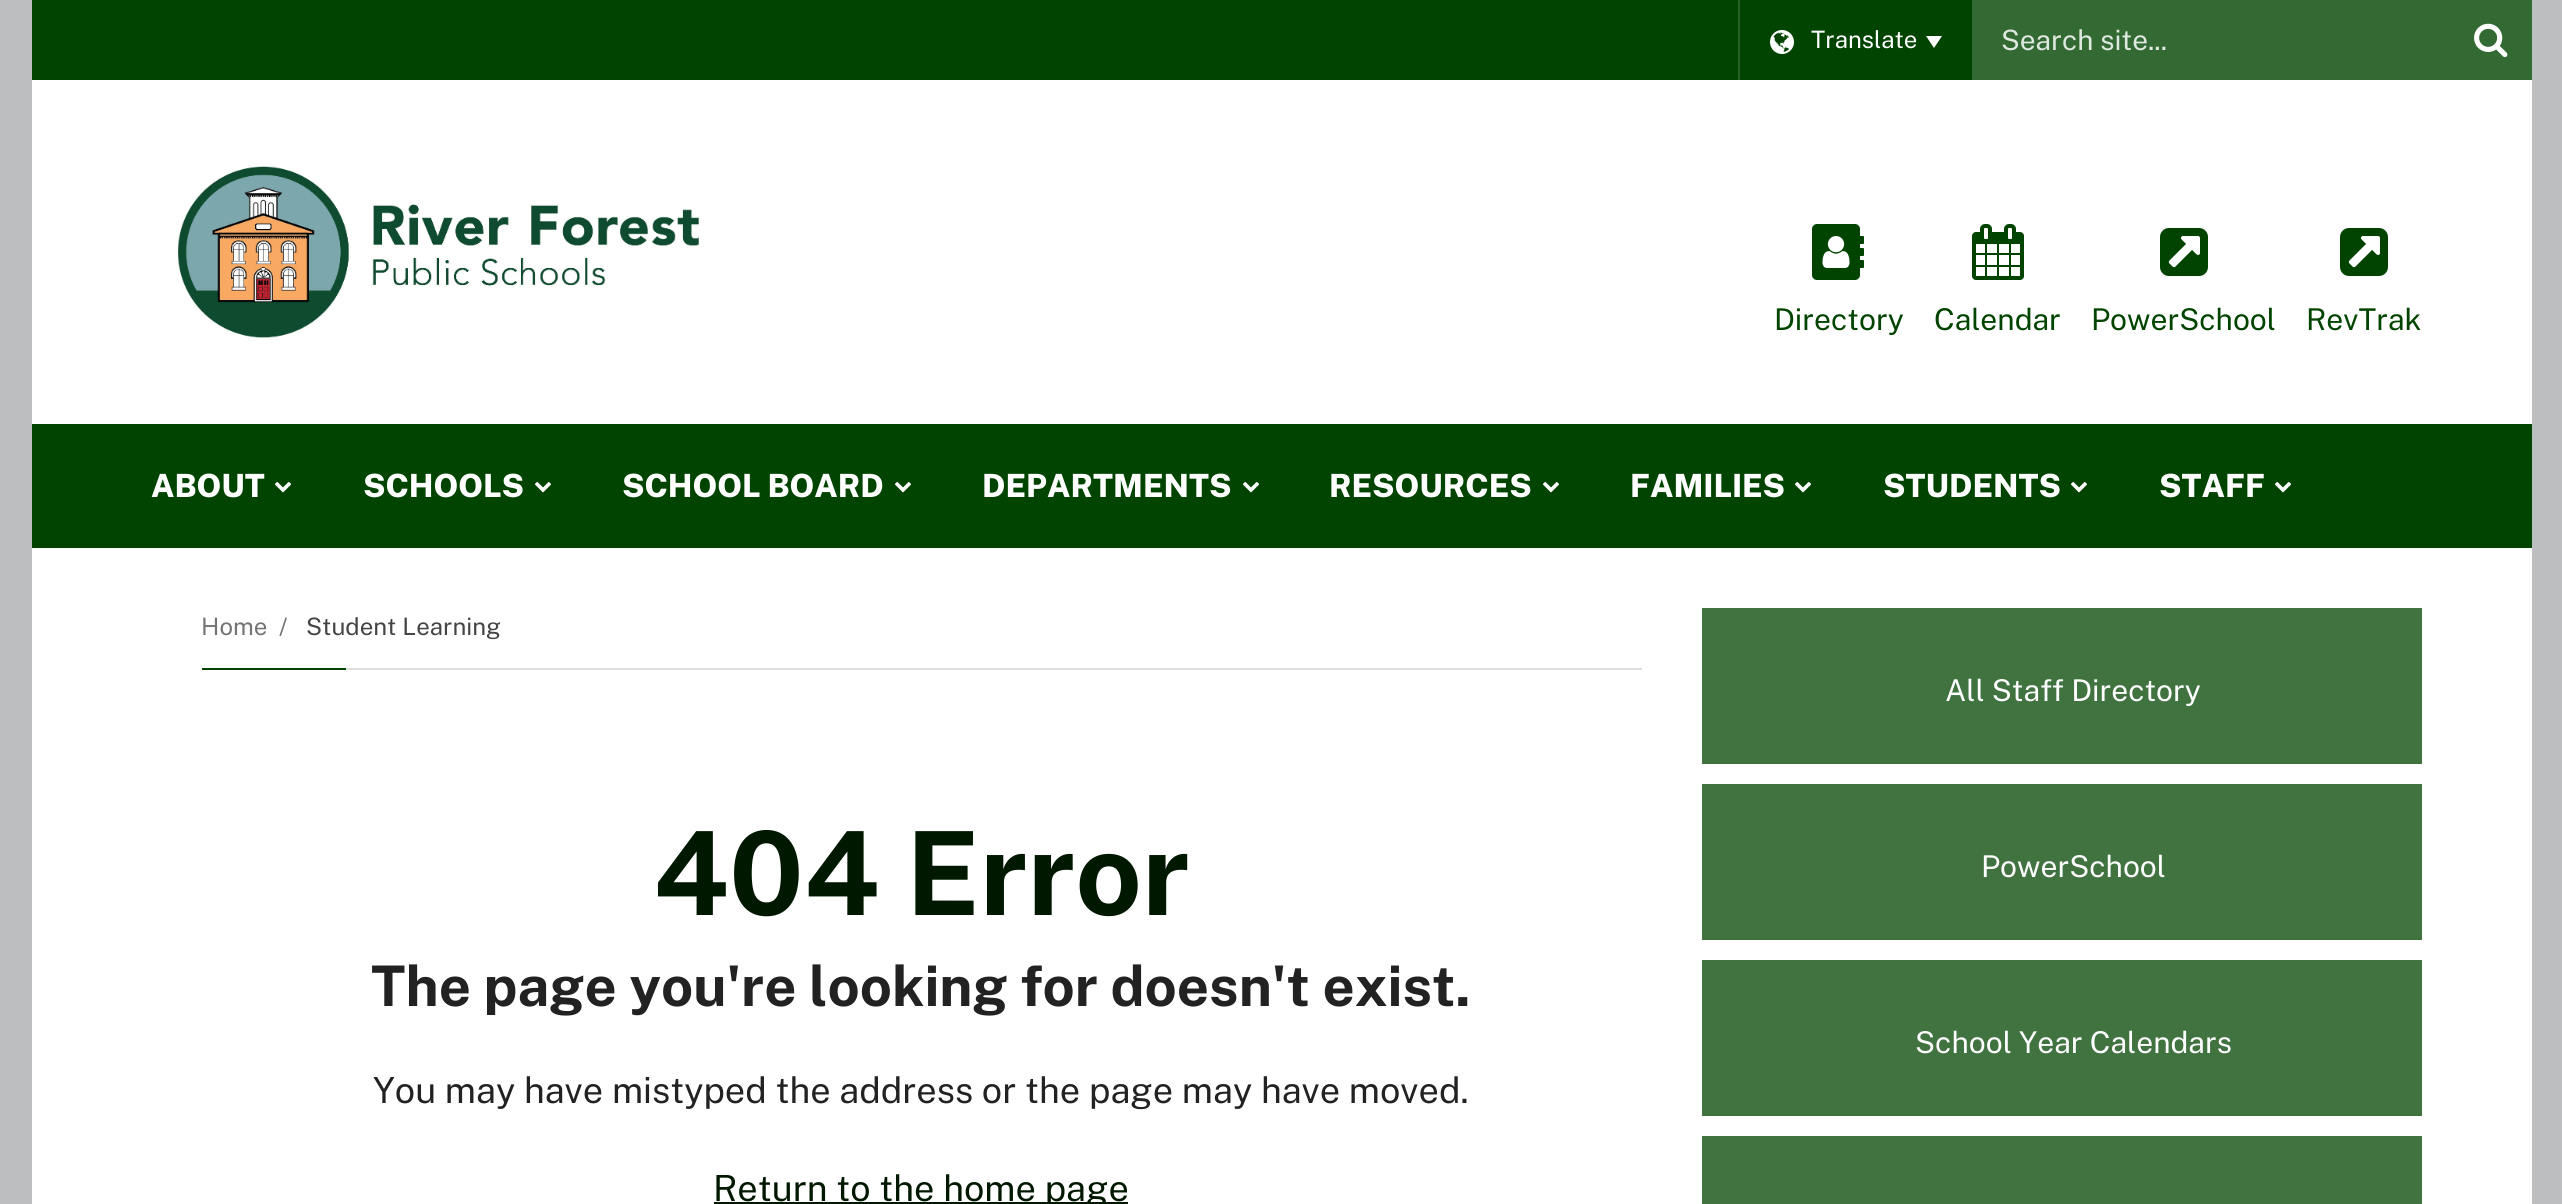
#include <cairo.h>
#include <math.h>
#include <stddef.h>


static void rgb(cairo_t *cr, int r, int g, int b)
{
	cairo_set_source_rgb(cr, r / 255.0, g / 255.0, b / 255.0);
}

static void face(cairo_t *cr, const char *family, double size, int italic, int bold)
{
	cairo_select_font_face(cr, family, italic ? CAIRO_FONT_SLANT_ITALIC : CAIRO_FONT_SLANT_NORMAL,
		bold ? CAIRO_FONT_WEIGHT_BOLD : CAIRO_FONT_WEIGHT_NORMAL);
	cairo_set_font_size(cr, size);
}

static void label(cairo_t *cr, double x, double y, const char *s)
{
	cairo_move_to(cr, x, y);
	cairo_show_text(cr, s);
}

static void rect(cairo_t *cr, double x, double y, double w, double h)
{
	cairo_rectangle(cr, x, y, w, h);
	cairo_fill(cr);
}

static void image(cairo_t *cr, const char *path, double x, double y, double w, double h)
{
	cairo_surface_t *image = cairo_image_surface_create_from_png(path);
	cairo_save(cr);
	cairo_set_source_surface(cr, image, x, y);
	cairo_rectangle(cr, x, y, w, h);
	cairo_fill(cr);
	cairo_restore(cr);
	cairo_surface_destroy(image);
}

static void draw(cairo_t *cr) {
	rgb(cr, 188, 190, 192);
	cairo_paint(cr);
	rgb(cr, 255, 255, 255);
	rect(cr, 32, 80, 2500, 1124);
	rgb(cr, 0, 68, 0);
	rect(cr, 32, 424, 2500, 124);
	rect(cr, 32, 0, 1940, 80);
	rgb(cr, 38, 96, 38);
	rect(cr, 1738, 0, 2, 80);
	image(cr, "image0.png", 1770, 30, 24, 24);
	face(cr, "Public Sans", 24, 0, 0);
	rgb(cr, 255, 255, 255);
	label(cr, 1811, 48, "Translate");
	cairo_new_path(cr);
	cairo_move_to(cr, 1926, 36);
	cairo_line_to(cr, 1942, 36);
	cairo_line_to(cr, 1934, 48);
	cairo_close_path(cr);
	cairo_fill(cr);
	rgb(cr, 51, 105, 51);
	rect(cr, 1972, 0, 560, 80);
	face(cr, "Public Sans", 28, 0, 0);
	rgb(cr, 224, 233, 224);
	label(cr, 2001, 50, "Search site...");
	image(cr, "image1.png", 2474, 23, 34, 35);
	image(cr, "image2.png", 178, 166, 522, 172);
	image(cr, "image3.png", 1812, 224, 52, 56);
	face(cr, "Public Sans", 30, 0, 0);
	rgb(cr, 0, 68, 0);
	label(cr, 1774, 330, "Directory");
	image(cr, "image4.png", 1972, 224, 52, 56);
	label(cr, 1934, 330, "Calendar");
	image(cr, "image5.png", 2160, 228, 48, 48);
	label(cr, 2091, 330, "PowerSchool");
	image(cr, "image5.png", 2340, 228, 48, 48);
	label(cr, 2306, 330, "RevTrak");
	face(cr, "Public Sans ExtraBold", 32, 0, 0);
	rgb(cr, 255, 255, 255);
	label(cr, 151, 497, "ABOUT");
	image(cr, "image6.png", 274, 482, 18, 11);
	label(cr, 363, 497, "SCHOOLS");
	image(cr, "image6.png", 534, 482, 18, 11);
	label(cr, 622, 497, "SCHOOL BOARD");
	image(cr, "image6.png", 894, 482, 18, 11);
	label(cr, 982, 497, "DEPARTMENTS");
	image(cr, "image6.png", 1242, 482, 18, 11);
	label(cr, 1329, 497, "RESOURCES");
	image(cr, "image6.png", 1542, 482, 18, 11);
	label(cr, 1630, 497, "FAMILIES");
	image(cr, "image6.png", 1794, 482, 18, 11);
	label(cr, 1883, 497, "STUDENTS");
	image(cr, "image6.png", 2070, 482, 18, 11);
	label(cr, 2159, 497, "STAFF");
	image(cr, "image6.png", 2274, 482, 18, 11);
	rgb(cr, 222, 222, 222);
	rect(cr, 346, 668, 1296, 2);
	face(cr, "Public Sans", 24, 0, 0);
	rgb(cr, 116, 116, 116);
	label(cr, 201, 635, "Home");
	label(cr, 279, 635, "/");
	rgb(cr, 68, 68, 68);
	label(cr, 306, 635, "Student Learning");
	rgb(cr, 0, 68, 0);
	rect(cr, 202, 668, 144, 2);
	face(cr, "Public Sans", 116, 0, 1);
	rgb(cr, 0, 24, 0);
	label(cr, 653, 915, "404 Error");
	face(cr, "Public Sans", 56, 0, 1);
	rgb(cr, 34, 34, 34);
	label(cr, 371, 1006, "The page you're looking for doesn't exist.");
	face(cr, "Public Sans", 36, 0, 0);
	label(cr, 373, 1103, "You may have mistyped the address or the page may have moved.");
	rgb(cr, 0, 24, 0);
	rect(cr, 714, 1202, 414, 2);
	label(cr, 713, 1201, "Return to the home page");
	rgb(cr, 64, 115, 64);
	rect(cr, 1702, 608, 720, 156);
	face(cr, "Public Sans", 30, 0, 0);
	rgb(cr, 255, 255, 255);
	label(cr, 1945, 701, "All Staff Directory");
	rgb(cr, 64, 115, 64);
	rect(cr, 1702, 784, 720, 156);
	rgb(cr, 255, 255, 255);
	label(cr, 1981, 877, "PowerSchool");
	rgb(cr, 64, 115, 64);
	rect(cr, 1702, 960, 720, 156);
	rgb(cr, 255, 255, 255);
	label(cr, 1915, 1053, "School Year Calendars");
	rgb(cr, 64, 115, 64);
	rect(cr, 1702, 1136, 720, 68);
}

int main(void) {
	cairo_surface_t *surface = cairo_image_surface_create(CAIRO_FORMAT_RGB24, 2562, 1204);
	cairo_t *cr = cairo_create(surface);
	cairo_font_options_t *options = cairo_font_options_create();
	cairo_font_options_set_hint_metrics(options, CAIRO_HINT_METRICS_OFF);
	cairo_font_options_set_hint_style(options, CAIRO_HINT_STYLE_NONE);
	cairo_set_font_options(cr, options);
	cairo_set_miter_limit(cr, 4);
	draw(cr);
	cairo_surface_write_to_png(surface, "render.png");
	cairo_font_options_destroy(options);
	cairo_destroy(cr);
	cairo_surface_destroy(surface);
	return 0;
}
